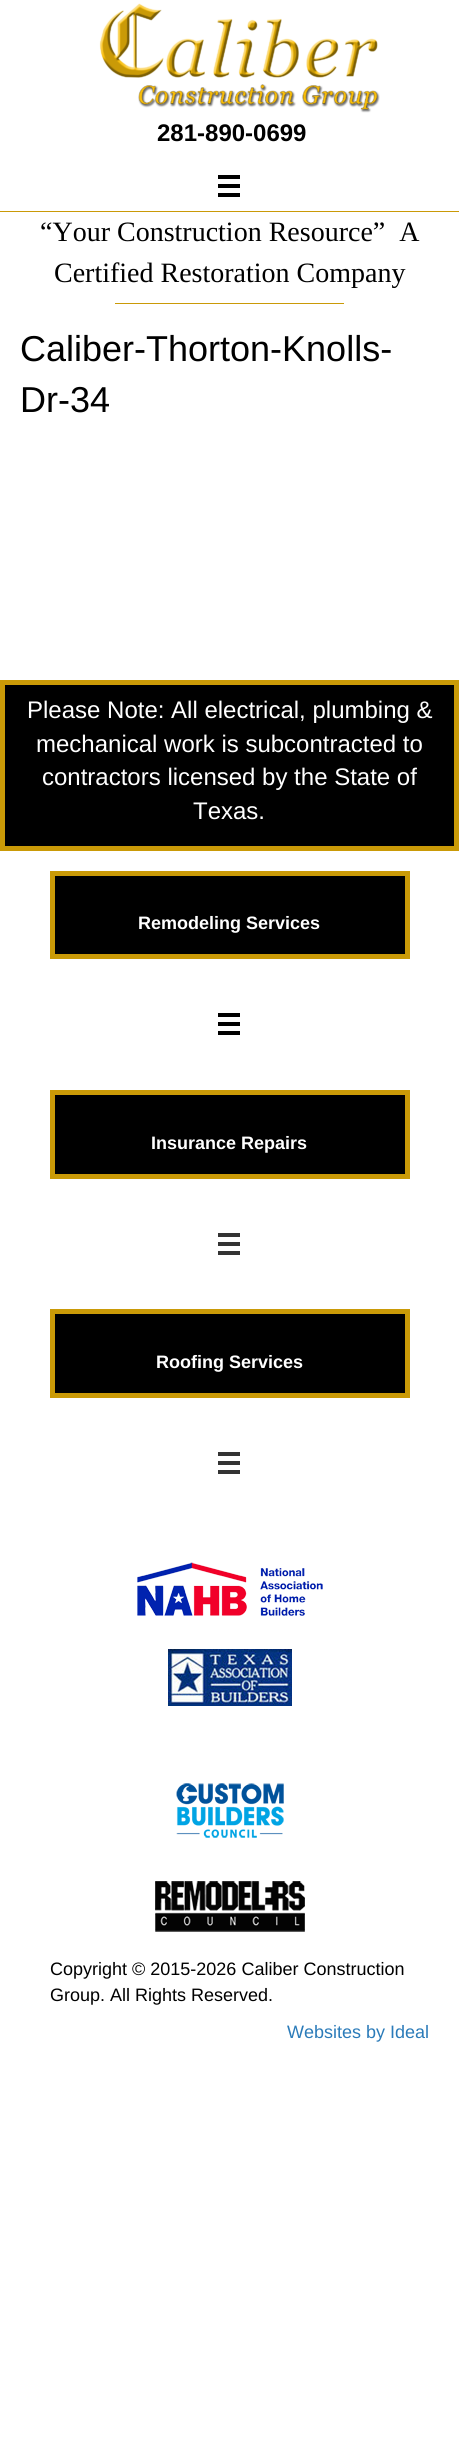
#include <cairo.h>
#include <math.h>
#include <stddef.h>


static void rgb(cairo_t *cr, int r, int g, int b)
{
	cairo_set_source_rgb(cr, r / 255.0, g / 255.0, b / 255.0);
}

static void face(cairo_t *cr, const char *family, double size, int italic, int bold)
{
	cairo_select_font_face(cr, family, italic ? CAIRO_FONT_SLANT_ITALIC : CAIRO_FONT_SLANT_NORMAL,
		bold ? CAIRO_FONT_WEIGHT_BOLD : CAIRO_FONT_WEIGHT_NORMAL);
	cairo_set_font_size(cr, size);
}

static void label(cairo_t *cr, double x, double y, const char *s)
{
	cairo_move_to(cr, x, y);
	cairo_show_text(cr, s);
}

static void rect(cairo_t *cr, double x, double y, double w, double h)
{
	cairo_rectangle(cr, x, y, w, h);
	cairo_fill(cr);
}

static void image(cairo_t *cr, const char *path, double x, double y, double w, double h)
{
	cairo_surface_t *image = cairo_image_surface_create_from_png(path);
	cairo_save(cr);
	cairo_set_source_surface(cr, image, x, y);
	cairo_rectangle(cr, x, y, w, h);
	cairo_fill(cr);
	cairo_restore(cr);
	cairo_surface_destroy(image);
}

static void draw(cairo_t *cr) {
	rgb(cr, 255, 255, 255);
	cairo_paint(cr);
	image(cr, "image0.png", 99, 3, 281, 110);
	face(cr, "Liberation Sans", 24, 0, 1);
	rgb(cr, 0, 0, 0);
	label(cr, 157, 141, "281-890-0699");
	rect(cr, 218, 175, 22, 4);
	rect(cr, 218, 184, 22, 4);
	rect(cr, 218, 193, 22, 4);
	rgb(cr, 202, 154, 7);
	rect(cr, 0, 211, 459, 1);
	face(cr, "Liberation Serif", 28, 0, 0);
	rgb(cr, 0, 0, 0);
	label(cr, 40, 241, "“Your Construction Resource”  A");
	label(cr, 54, 282, "Certified Restoration Company");
	rgb(cr, 202, 154, 7);
	rect(cr, 115, 303, 229, 1);
	face(cr, "Liberation Sans", 36, 0, 0);
	rgb(cr, 0, 0, 0);
	label(cr, 20, 361, "Caliber-Thorton-Knolls-");
	label(cr, 20, 412, "Dr-34");
	cairo_rectangle(cr, 2.5, 682.5, 454, 166);
	cairo_fill_preserve(cr);
	rgb(cr, 202, 154, 7);
	cairo_set_line_width(cr, 5);
	cairo_stroke(cr);
	face(cr, "Liberation Sans", 24, 0, 0);
	rgb(cr, 255, 255, 255);
	label(cr, 27, 718, "Please Note: All electrical, plumbing &");
	label(cr, 36, 752, "mechanical work is subcontracted to");
	label(cr, 42, 785, "contractors licensed by the State of");
	label(cr, 193, 819, "Texas.");
	rgb(cr, 0, 0, 0);
	cairo_rectangle(cr, 52.5, 873.5, 355, 83);
	cairo_fill_preserve(cr);
	rgb(cr, 202, 154, 7);
	cairo_stroke(cr);
	face(cr, "Liberation Sans", 18, 0, 1);
	rgb(cr, 255, 255, 255);
	label(cr, 138, 929, "Remodeling Services");
	rgb(cr, 0, 0, 0);
	rect(cr, 218, 1013, 22, 4);
	rect(cr, 218, 1022, 22, 4);
	rect(cr, 218, 1031, 22, 4);
	cairo_rectangle(cr, 52.5, 1092.5, 355, 84);
	cairo_fill_preserve(cr);
	rgb(cr, 202, 154, 7);
	cairo_stroke(cr);
	rgb(cr, 255, 255, 255);
	label(cr, 151, 1149, "Insurance Repairs");
	rgb(cr, 51, 51, 51);
	rect(cr, 218, 1233, 22, 4);
	rect(cr, 218, 1242, 22, 4);
	rect(cr, 218, 1251, 22, 4);
	rgb(cr, 0, 0, 0);
	cairo_rectangle(cr, 52.5, 1311.5, 355, 84);
	cairo_fill_preserve(cr);
	rgb(cr, 202, 154, 7);
	cairo_stroke(cr);
	rgb(cr, 255, 255, 255);
	label(cr, 156, 1368, "Roofing Services");
	rgb(cr, 51, 51, 51);
	rect(cr, 218, 1452, 22, 4);
	rect(cr, 218, 1461, 22, 4);
	rect(cr, 218, 1470, 22, 4);
	image(cr, "image1.png", 137, 1562, 186, 54);
	image(cr, "image2.png", 168, 1649, 124, 57);
	image(cr, "image3.png", 176, 1783, 108, 55);
	image(cr, "image4.png", 155, 1881, 150, 51);
	face(cr, "Liberation Sans", 18, 0, 0);
	rgb(cr, 0, 0, 0);
	label(cr, 50, 1975, "Copyright © 2015-2026 Caliber Construction");
	label(cr, 50, 2001, "Group. All Rights Reserved.");
	rgb(cr, 43, 123, 185);
	label(cr, 287, 2038, "Websites by Ideal");
}

int main(void) {
	cairo_surface_t *surface = cairo_image_surface_create(CAIRO_FORMAT_RGB24, 459, 2445);
	cairo_t *cr = cairo_create(surface);
	cairo_font_options_t *options = cairo_font_options_create();
	cairo_font_options_set_hint_metrics(options, CAIRO_HINT_METRICS_OFF);
	cairo_font_options_set_hint_style(options, CAIRO_HINT_STYLE_NONE);
	cairo_set_font_options(cr, options);
	cairo_set_miter_limit(cr, 4);
	draw(cr);
	cairo_surface_write_to_png(surface, "render.png");
	cairo_font_options_destroy(options);
	cairo_destroy(cr);
	cairo_surface_destroy(surface);
	return 0;
}
